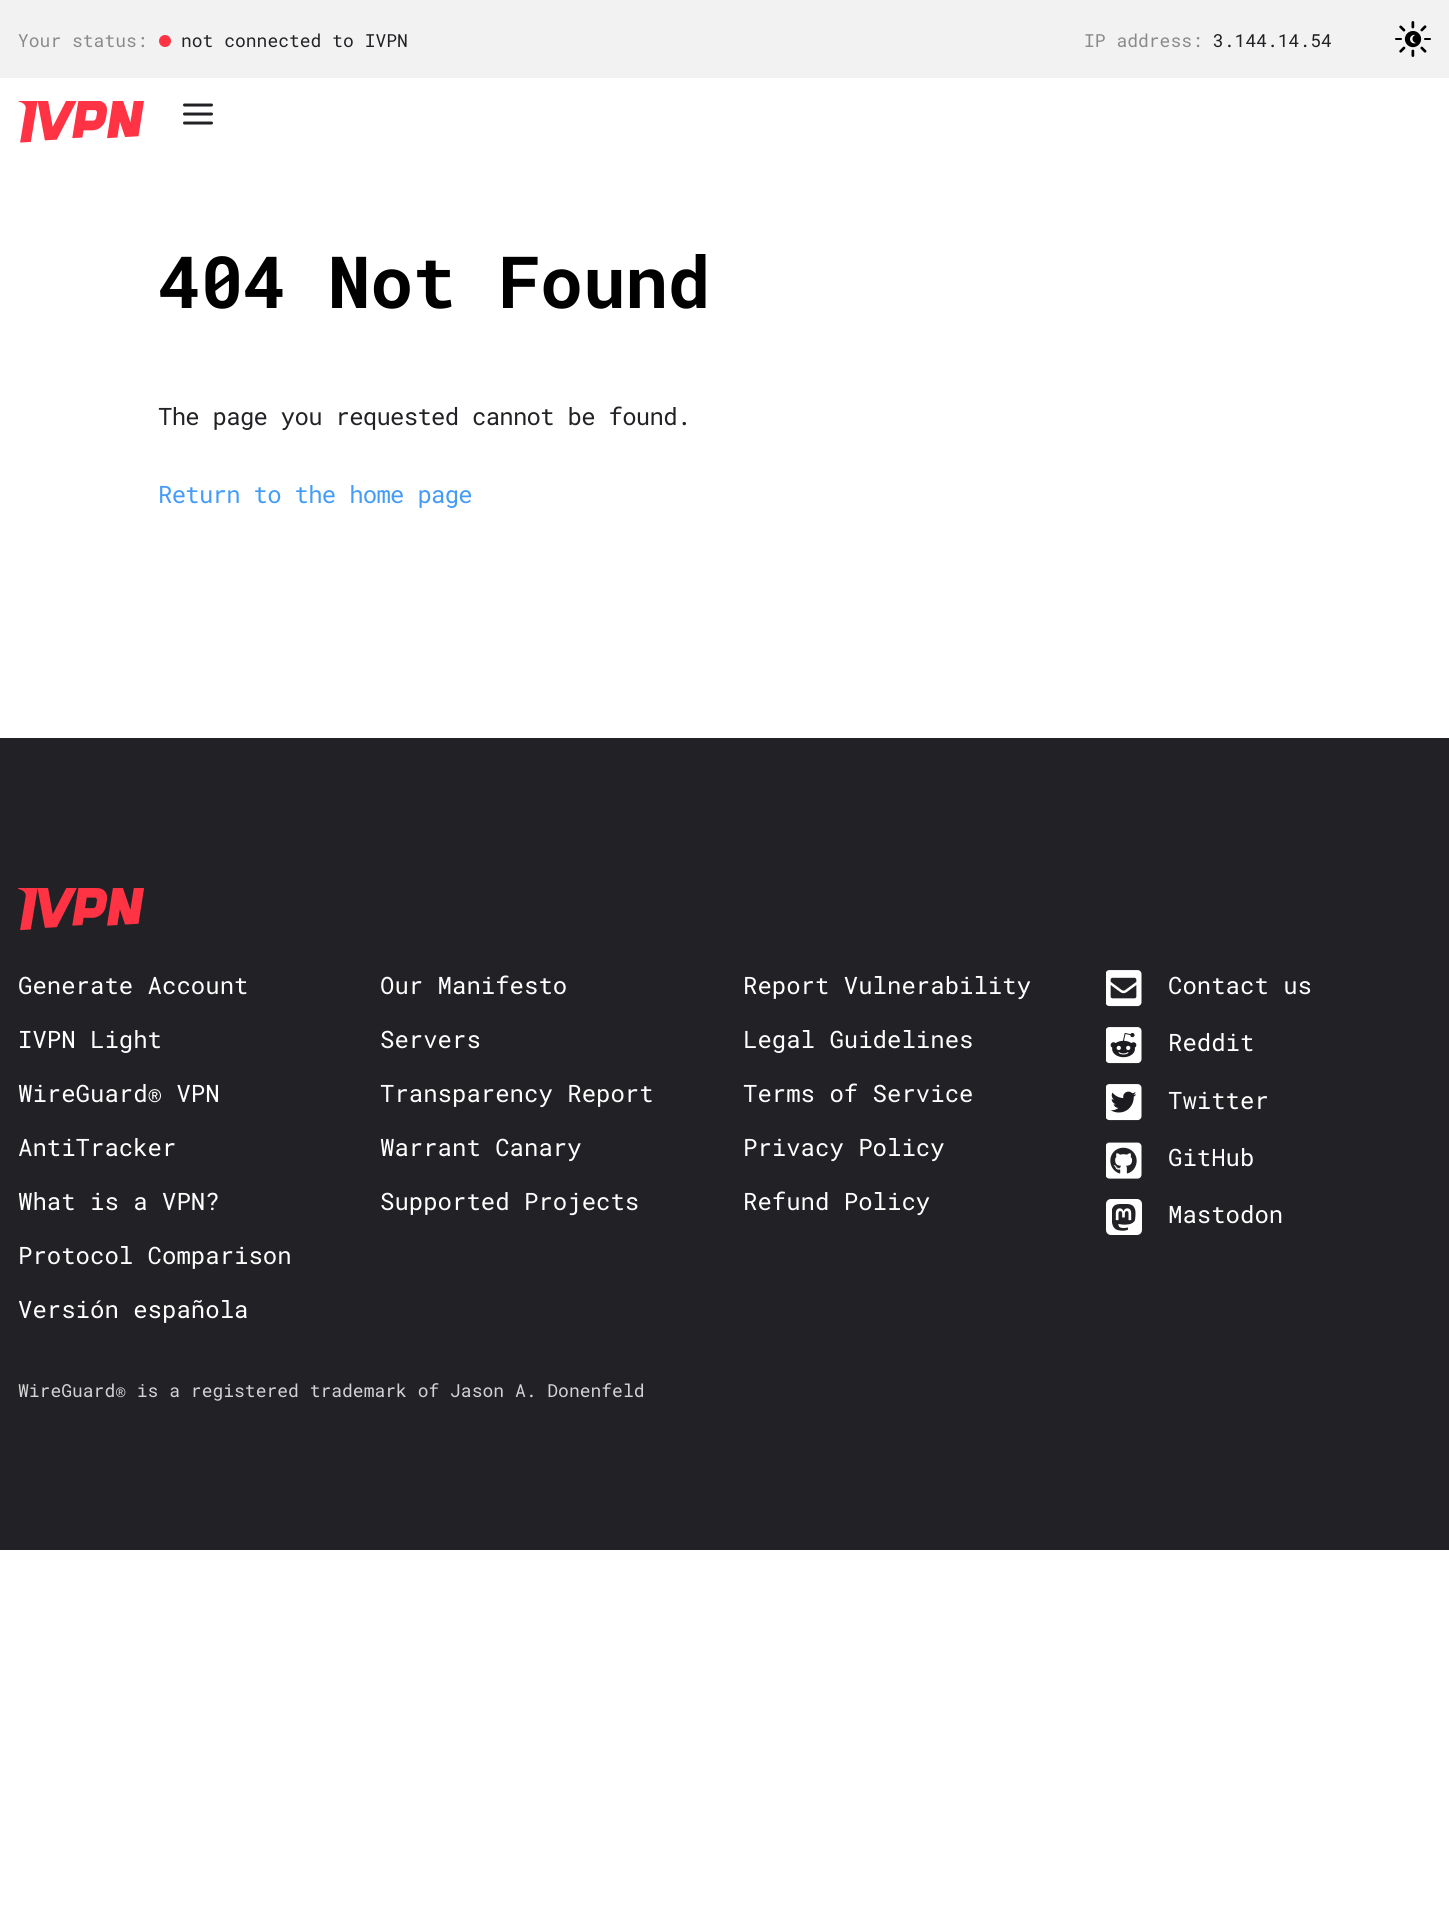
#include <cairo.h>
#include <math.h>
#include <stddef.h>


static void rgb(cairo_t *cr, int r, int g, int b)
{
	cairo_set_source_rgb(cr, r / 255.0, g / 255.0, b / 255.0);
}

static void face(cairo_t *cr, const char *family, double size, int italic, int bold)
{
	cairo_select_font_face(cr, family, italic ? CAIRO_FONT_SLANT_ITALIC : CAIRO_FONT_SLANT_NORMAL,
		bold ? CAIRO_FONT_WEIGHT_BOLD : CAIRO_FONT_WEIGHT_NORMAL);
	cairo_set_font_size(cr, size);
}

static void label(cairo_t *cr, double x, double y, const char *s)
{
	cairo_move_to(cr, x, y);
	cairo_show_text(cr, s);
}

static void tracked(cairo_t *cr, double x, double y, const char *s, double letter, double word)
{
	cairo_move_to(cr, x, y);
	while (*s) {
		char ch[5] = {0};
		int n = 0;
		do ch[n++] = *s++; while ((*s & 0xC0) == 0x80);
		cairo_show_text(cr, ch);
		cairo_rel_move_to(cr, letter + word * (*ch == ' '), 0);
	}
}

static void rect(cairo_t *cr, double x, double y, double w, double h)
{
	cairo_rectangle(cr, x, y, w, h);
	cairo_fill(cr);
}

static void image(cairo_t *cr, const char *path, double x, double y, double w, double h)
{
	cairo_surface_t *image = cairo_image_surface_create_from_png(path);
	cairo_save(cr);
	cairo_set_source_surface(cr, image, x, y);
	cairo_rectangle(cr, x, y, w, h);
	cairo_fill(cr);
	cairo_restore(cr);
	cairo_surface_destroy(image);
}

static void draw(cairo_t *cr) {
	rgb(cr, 255, 255, 255);
	cairo_paint(cr);
	rgb(cr, 242, 242, 242);
	rect(cr, 0, 0, 1449, 78);
	face(cr, "Roboto Mono", 18, 0, 0);
	rgb(cr, 138, 138, 140);
	label(cr, 18, 47, "Your status:");
	rgb(cr, 255, 51, 68);
	cairo_new_path(cr);
	cairo_arc(cr, 165, 41, 6, 0, 2 * M_PI);
	cairo_fill(cr);
	rgb(cr, 34, 34, 38);
	label(cr, 181, 47, "not connected to IVPN");
	rgb(cr, 138, 138, 140);
	label(cr, 1084, 47, "IP address:");
	rgb(cr, 34, 34, 38);
	label(cr, 1213, 47, "3.144.14.54");
	image(cr, "image0.png", 1395, 21, 36, 36);
	image(cr, "image1.png", 18, 101, 126, 42);
	cairo_new_path(cr);
	cairo_move_to(cr, 184.5, 114);
	cairo_line_to(cr, 211.5, 114);
	cairo_move_to(cr, 184.5, 105);
	cairo_line_to(cr, 211.5, 105);
	cairo_move_to(cr, 184.5, 123);
	cairo_line_to(cr, 211.5, 123);
	cairo_set_line_width(cr, 3);
	cairo_set_line_cap(cr, CAIRO_LINE_CAP_ROUND);
	cairo_set_line_join(cr, CAIRO_LINE_JOIN_ROUND);
	cairo_stroke(cr);
	face(cr, "Roboto Mono", 72, 0, 1);
	rgb(cr, 0, 0, 0);
	tracked(cr, 158, 308, "404 Not Found", -0.75, 0);
	face(cr, "Roboto Mono", 24, 0, 0);
	rgb(cr, 34, 34, 38);
	tracked(cr, 158, 425, "The page you requested cannot be found.", -0.75, 0);
	rgb(cr, 68, 156, 248);
	tracked(cr, 158, 503, "Return to the home page", -0.75, 0);
	rgb(cr, 34, 34, 38);
	rect(cr, 0, 738, 1449, 812);
	image(cr, "image2.png", 18, 888, 126, 43);
	rgb(cr, 255, 255, 255);
	label(cr, 18, 994, "Generate Account");
	label(cr, 18, 1048, "IVPN Light");
	label(cr, 18, 1102, "WireGuard® VPN");
	label(cr, 18, 1156, "AntiTracker");
	label(cr, 18, 1210, "What is a VPN?");
	label(cr, 18, 1264, "Protocol Comparison");
	label(cr, 18, 1318, "Versión española");
	label(cr, 380, 994, "Our Manifesto");
	label(cr, 380, 1048, "Servers");
	label(cr, 380, 1102, "Transparency Report");
	label(cr, 380, 1156, "Warrant Canary");
	label(cr, 380, 1210, "Supported Projects");
	label(cr, 743, 994, "Report Vulnerability");
	label(cr, 743, 1048, "Legal Guidelines");
	label(cr, 743, 1102, "Terms of Service");
	label(cr, 743, 1156, "Privacy Policy");
	label(cr, 743, 1210, "Refund Policy");
	image(cr, "image3.png", 1106, 970, 36, 37);
	label(cr, 1168, 994, "Contact us");
	image(cr, "image4.png", 1106, 1027, 36, 37);
	label(cr, 1168, 1051, "Reddit");
	image(cr, "image5.png", 1106, 1084, 36, 37);
	label(cr, 1168, 1109, "Twitter");
	image(cr, "image6.png", 1106, 1142, 36, 37);
	label(cr, 1168, 1166, "GitHub");
	image(cr, "image7.png", 1106, 1199, 36, 36);
	label(cr, 1168, 1223, "Mastodon");
	face(cr, "Roboto Mono", 18, 0, 0);
	rgb(cr, 211, 211, 212);
	label(cr, 18, 1397, "WireGuard® is a registered trademark of Jason A. Donenfeld");
}

int main(void) {
	cairo_surface_t *surface = cairo_image_surface_create(CAIRO_FORMAT_RGB24, 1449, 1905);
	cairo_t *cr = cairo_create(surface);
	cairo_font_options_t *options = cairo_font_options_create();
	cairo_font_options_set_hint_metrics(options, CAIRO_HINT_METRICS_OFF);
	cairo_font_options_set_hint_style(options, CAIRO_HINT_STYLE_NONE);
	cairo_set_font_options(cr, options);
	cairo_set_miter_limit(cr, 4);
	draw(cr);
	cairo_surface_write_to_png(surface, "render.png");
	cairo_font_options_destroy(options);
	cairo_destroy(cr);
	cairo_surface_destroy(surface);
	return 0;
}
